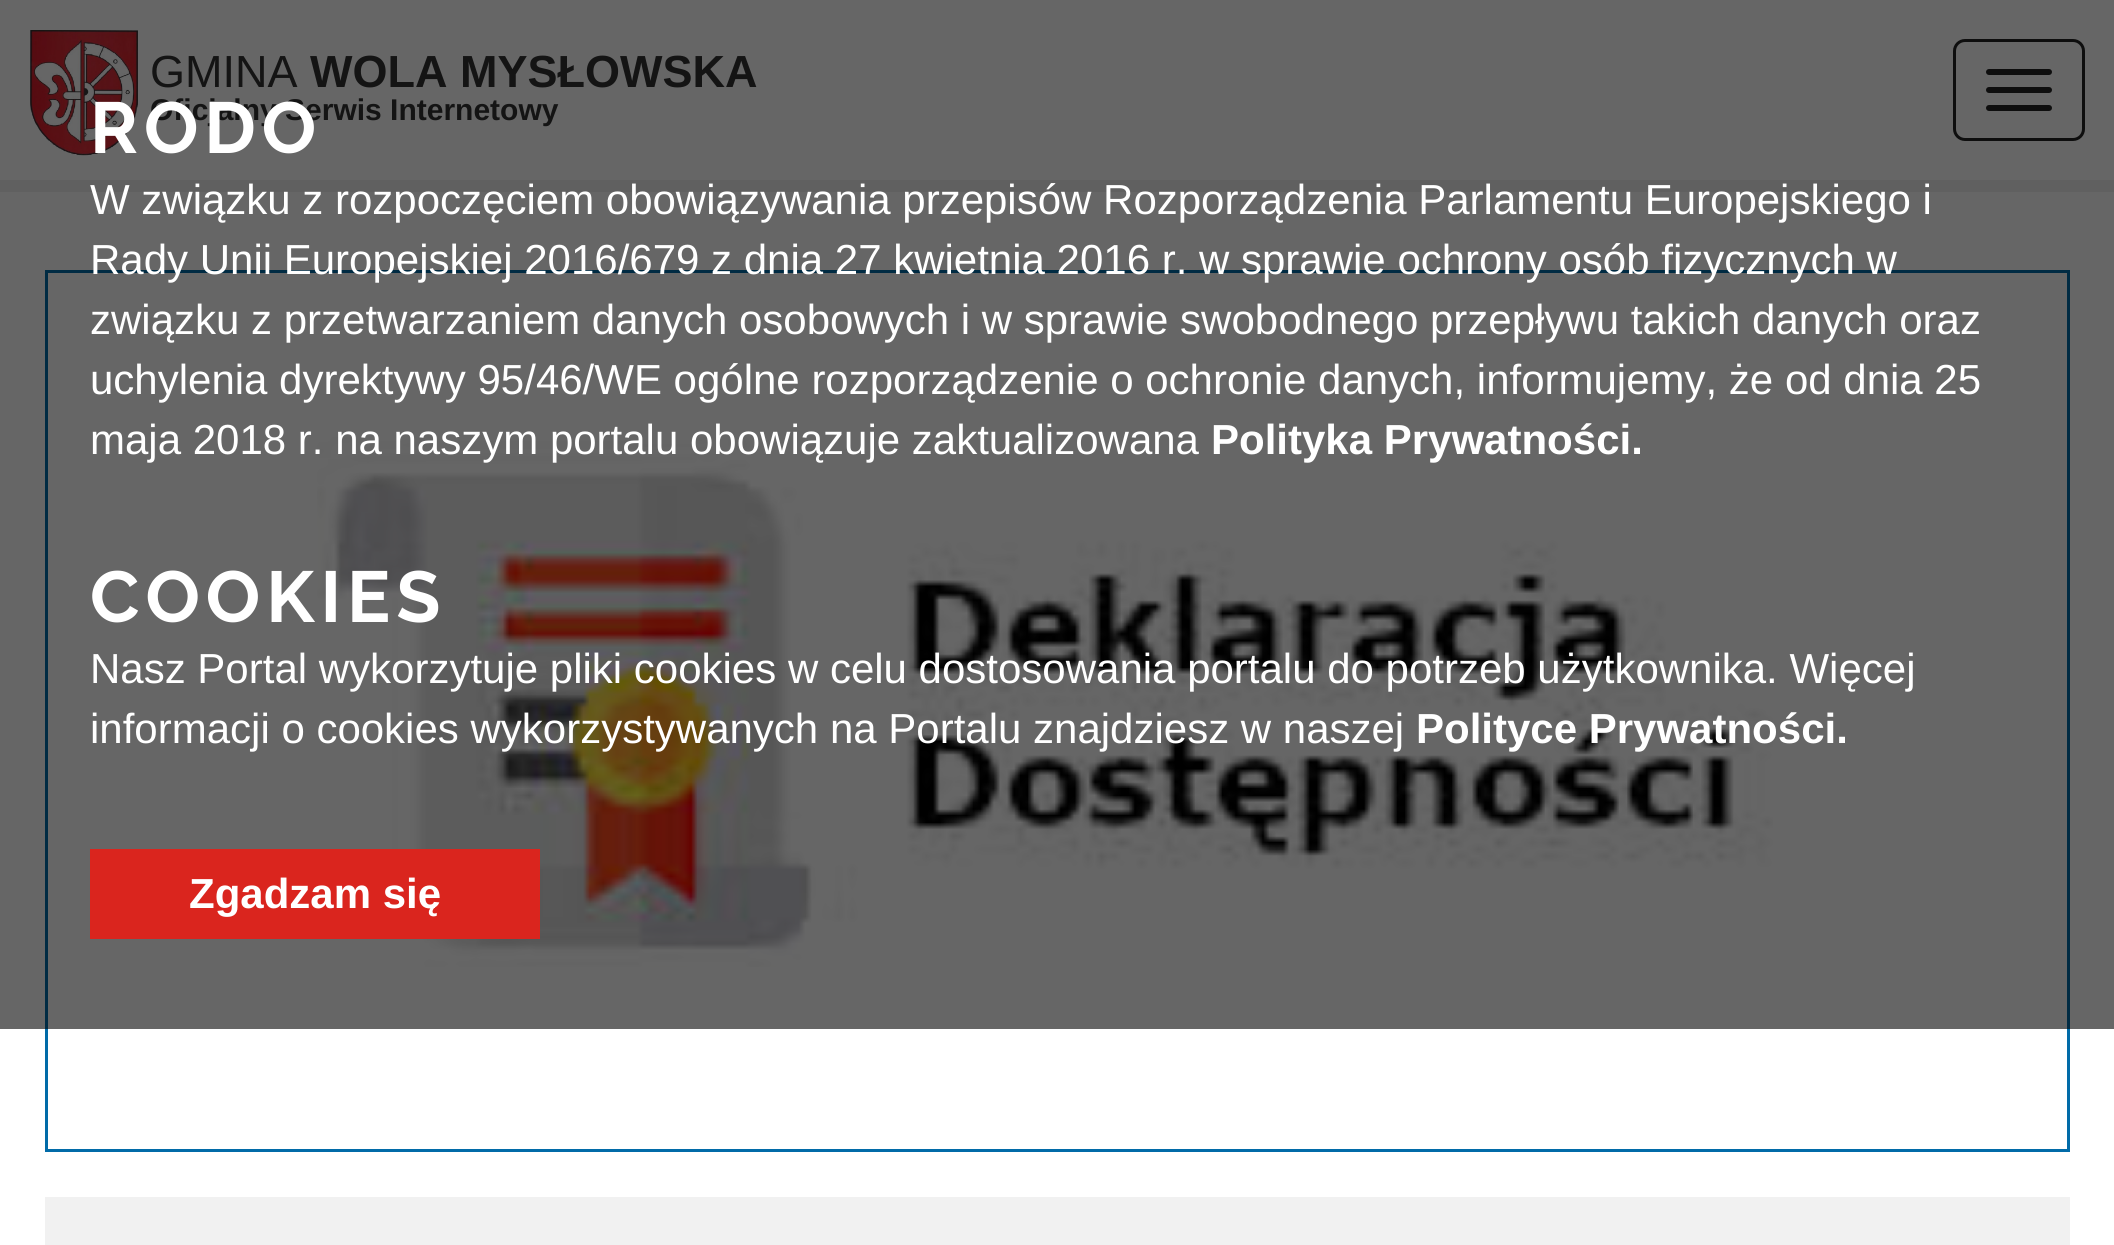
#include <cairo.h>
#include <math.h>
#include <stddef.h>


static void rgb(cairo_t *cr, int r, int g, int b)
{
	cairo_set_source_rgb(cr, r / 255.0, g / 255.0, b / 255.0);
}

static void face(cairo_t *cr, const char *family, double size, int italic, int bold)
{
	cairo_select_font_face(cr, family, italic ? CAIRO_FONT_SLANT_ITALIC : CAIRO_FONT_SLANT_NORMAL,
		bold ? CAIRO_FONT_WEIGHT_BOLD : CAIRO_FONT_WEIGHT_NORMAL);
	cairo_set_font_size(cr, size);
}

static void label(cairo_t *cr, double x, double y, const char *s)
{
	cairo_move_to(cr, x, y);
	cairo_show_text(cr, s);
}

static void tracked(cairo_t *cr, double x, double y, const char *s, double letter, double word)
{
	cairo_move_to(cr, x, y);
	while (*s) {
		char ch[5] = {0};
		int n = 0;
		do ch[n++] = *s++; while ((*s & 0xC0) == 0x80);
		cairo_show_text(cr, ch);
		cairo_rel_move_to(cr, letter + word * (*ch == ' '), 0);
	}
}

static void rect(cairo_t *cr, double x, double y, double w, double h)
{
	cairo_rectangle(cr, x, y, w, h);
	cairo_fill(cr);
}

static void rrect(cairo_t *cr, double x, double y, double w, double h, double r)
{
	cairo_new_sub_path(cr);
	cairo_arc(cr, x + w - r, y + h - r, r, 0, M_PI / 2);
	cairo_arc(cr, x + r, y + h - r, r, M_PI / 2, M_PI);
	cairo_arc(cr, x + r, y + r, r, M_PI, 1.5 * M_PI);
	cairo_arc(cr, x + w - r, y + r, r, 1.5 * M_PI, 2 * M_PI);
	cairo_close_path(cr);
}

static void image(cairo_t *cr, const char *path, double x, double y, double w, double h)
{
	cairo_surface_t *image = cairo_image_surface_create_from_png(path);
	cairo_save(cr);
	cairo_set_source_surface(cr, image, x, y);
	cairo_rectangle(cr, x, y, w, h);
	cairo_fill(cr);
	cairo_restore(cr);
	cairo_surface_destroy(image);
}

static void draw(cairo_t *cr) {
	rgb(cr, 255, 255, 255);
	cairo_paint(cr);
	rgb(cr, 241, 241, 241);
	rect(cr, 0, 180, 2114, 12);
	image(cr, "image0.png", 30, 30, 108, 126);
	face(cr, "Liberation Sans", 45, 0, 0);
	rgb(cr, 51, 51, 51);
	label(cr, 150, 87, "GMINA");
	face(cr, "Liberation Sans", 45, 0, 1);
	label(cr, 310, 87, "WOLA MYSŁOWSKA");
	face(cr, "Liberation Sans", 30, 0, 1);
	label(cr, 150, 120, "Oficjalny Serwis Internetowy");
	rrect(cr, 1954.5, 40.5, 129, 99, 10.5);
	rgb(cr, 34, 34, 34);
	cairo_set_line_width(cr, 3);
	cairo_stroke(cr);
	rrect(cr, 1986, 69, 66, 6, 3);
	cairo_fill(cr);
	rrect(cr, 1986, 87, 66, 6, 3);
	cairo_fill(cr);
	rrect(cr, 1986, 105, 66, 6, 3);
	cairo_fill(cr);
	cairo_rectangle(cr, 46.5, 271.5, 2022, 879);
	rgb(cr, 1, 107, 168);
	cairo_stroke(cr);
	image(cr, "image1.png", 317, 437, 1456, 530);
	cairo_set_source_rgba(cr, 0, 0, 0, 0.6);
	rect(cr, 0, 0, 2114, 1029);
	face(cr, "Raleway", 72, 0, 1);
	rgb(cr, 255, 255, 255);
	tracked(cr, 90, 153, "RODO", 6, 0);
	face(cr, "Liberation Sans", 42, 0, 0);
	label(cr, 90, 214, "W związku z rozpoczęciem obowiązywania przepisów Rozporządzenia Parlamentu Europejskiego i");
	label(cr, 90, 274, "Rady Unii Europejskiej 2016/679 z dnia 27 kwietnia 2016 r. w sprawie ochrony osób fizycznych w");
	label(cr, 90, 334, "związku z przetwarzaniem danych osobowych i w sprawie swobodnego przepływu takich danych oraz");
	label(cr, 90, 394, "uchylenia dyrektywy 95/46/WE ogólne rozporządzenie o ochronie danych, informujemy, że od dnia 25");
	label(cr, 90, 454, "maja 2018 r. na naszym portalu obowiązuje zaktualizowana");
	face(cr, "Liberation Sans", 42, 0, 1);
	label(cr, 1211, 454, "Polityka Prywatności.");
	face(cr, "Raleway", 72, 0, 1);
	tracked(cr, 90, 622, "COOKIES", 6, 0);
	face(cr, "Liberation Sans", 42, 0, 0);
	label(cr, 90, 683, "Nasz Portal wykorzytuje pliki cookies w celu dostosowania portalu do potrzeb użytkownika. Więcej");
	label(cr, 90, 743, "informacji o cookies wykorzystywanych na Portalu znajdziesz w naszej");
	face(cr, "Liberation Sans", 42, 0, 1);
	label(cr, 1416, 743, "Polityce Prywatności.");
	rgb(cr, 218, 37, 30);
	rect(cr, 90, 849, 450, 90);
	rgb(cr, 255, 255, 255);
	label(cr, 189, 908, "Zgadzam się");
	rgb(cr, 241, 241, 241);
	rect(cr, 45, 1197, 2025, 48);
}

int main(void) {
	cairo_surface_t *surface = cairo_image_surface_create(CAIRO_FORMAT_RGB24, 2114, 1245);
	cairo_t *cr = cairo_create(surface);
	cairo_font_options_t *options = cairo_font_options_create();
	cairo_font_options_set_hint_metrics(options, CAIRO_HINT_METRICS_OFF);
	cairo_font_options_set_hint_style(options, CAIRO_HINT_STYLE_NONE);
	cairo_set_font_options(cr, options);
	cairo_set_miter_limit(cr, 4);
	draw(cr);
	cairo_surface_write_to_png(surface, "render.png");
	cairo_font_options_destroy(options);
	cairo_destroy(cr);
	cairo_surface_destroy(surface);
	return 0;
}
